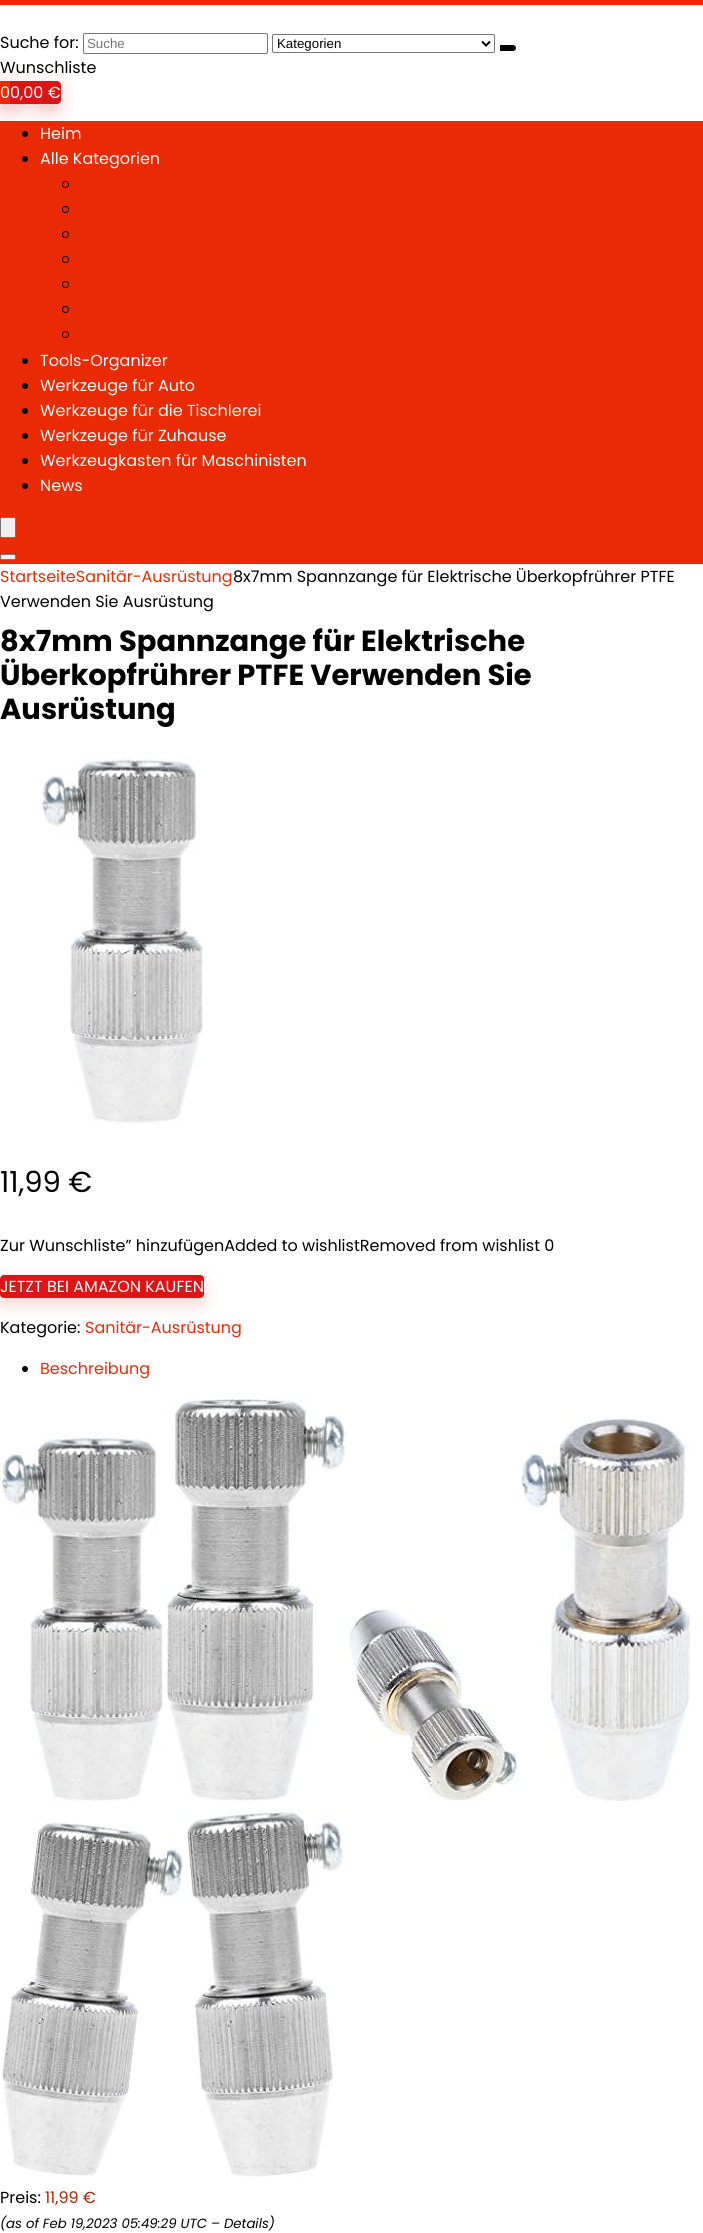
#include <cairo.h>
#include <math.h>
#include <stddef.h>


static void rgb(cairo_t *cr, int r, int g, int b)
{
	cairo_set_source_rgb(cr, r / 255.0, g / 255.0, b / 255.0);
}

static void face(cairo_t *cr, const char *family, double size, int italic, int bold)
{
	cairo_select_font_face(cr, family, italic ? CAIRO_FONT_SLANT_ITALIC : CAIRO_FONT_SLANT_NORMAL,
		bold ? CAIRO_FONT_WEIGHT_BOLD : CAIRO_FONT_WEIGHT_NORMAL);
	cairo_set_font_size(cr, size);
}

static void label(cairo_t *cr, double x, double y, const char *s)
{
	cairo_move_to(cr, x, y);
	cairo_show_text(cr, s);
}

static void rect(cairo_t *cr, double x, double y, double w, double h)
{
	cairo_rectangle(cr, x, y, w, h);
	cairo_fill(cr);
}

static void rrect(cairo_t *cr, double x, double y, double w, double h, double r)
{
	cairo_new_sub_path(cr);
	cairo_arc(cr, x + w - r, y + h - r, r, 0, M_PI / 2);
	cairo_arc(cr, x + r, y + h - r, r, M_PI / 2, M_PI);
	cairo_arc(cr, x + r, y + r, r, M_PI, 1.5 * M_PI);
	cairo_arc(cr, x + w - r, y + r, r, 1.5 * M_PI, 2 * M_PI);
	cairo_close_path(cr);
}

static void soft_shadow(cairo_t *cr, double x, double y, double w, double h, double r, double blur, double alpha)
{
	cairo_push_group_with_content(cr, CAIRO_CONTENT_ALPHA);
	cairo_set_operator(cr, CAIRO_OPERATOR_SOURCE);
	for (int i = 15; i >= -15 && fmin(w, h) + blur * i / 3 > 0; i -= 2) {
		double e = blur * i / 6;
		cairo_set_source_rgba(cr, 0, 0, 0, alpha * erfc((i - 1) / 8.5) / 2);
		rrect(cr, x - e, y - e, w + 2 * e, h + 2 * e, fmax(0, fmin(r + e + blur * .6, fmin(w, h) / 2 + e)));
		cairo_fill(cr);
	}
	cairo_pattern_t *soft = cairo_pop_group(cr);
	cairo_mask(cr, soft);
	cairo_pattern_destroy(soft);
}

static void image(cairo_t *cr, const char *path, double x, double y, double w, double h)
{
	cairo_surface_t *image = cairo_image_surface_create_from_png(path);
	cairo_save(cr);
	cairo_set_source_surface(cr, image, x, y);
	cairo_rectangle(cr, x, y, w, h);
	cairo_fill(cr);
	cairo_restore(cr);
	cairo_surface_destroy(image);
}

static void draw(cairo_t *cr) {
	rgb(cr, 255, 255, 255);
	cairo_paint(cr);
	rgb(cr, 233, 42, 4);
	rect(cr, 0, 0, 703, 5);
	face(cr, "Poppins", 16, 0, 0);
	rgb(cr, 0, 0, 0);
	label(cr, 0, 48, "Suche for:");
	rrect(cr, 83.5, 33.5, 184, 20, 1.5);
	rgb(cr, 118, 118, 118);
	cairo_set_line_width(cr, 1);
	cairo_stroke(cr);
	face(cr, "Liberation Sans", 13.3, 0, 0);
	rgb(cr, 117, 117, 117);
	label(cr, 87, 48, "Suche");
	rrect(cr, 272.5, 34.5, 222, 18, 1.5);
	rgb(cr, 118, 118, 118);
	cairo_stroke(cr);
	cairo_new_path(cr);
	cairo_move_to(cr, 482, 41.5);
	cairo_line_to(cr, 486, 45.5);
	cairo_line_to(cr, 490, 41.5);
	rgb(cr, 0, 0, 0);
	cairo_set_line_width(cr, 2);
	cairo_stroke(cr);
	label(cr, 277, 48, "Kategorien");
	cairo_new_path(cr);
	cairo_move_to(cr, 501, 46);
	cairo_line_to(cr, 513, 46);
	cairo_curve_to(cr, 514, 46, 515, 47, 515, 48);
	cairo_curve_to(cr, 515, 49, 514, 50, 513, 50);
	cairo_line_to(cr, 501, 50);
	cairo_close_path(cr);
	cairo_fill_preserve(cr);
	cairo_stroke(cr);
	face(cr, "Poppins", 16, 0, 0);
	label(cr, 0, 73, "Wunschliste");
	rgb(cr, 233, 42, 4);
	rect(cr, 0, 121, 703, 443);
	rgb(cr, 222, 20, 20);
	soft_shadow(cr, -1, 87, 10, 23, 4, 9.5, 0.2);
	soft_shadow(cr, 9, 87, 38, 23, 0, 9.5, 0.2);
	rgb(cr, 222, 20, 20);
	rect(cr, 10, 81, 38, 23);
	rgb(cr, 222, 20, 20);
	soft_shadow(cr, 47, 87, 13, 23, 4, 9.5, 0.2);
	rgb(cr, 222, 20, 20);
	cairo_new_path(cr);
	cairo_move_to(cr, 48, 81);
	cairo_line_to(cr, 57, 81);
	cairo_curve_to(cr, 59, 81, 61, 83, 61, 85);
	cairo_line_to(cr, 61, 100);
	cairo_curve_to(cr, 61, 102, 59, 104, 57, 104);
	cairo_line_to(cr, 48, 104);
	cairo_close_path(cr);
	cairo_fill(cr);
	rgb(cr, 233, 42, 4);
	rect(cr, 0, 81, 10, 23);
	rgb(cr, 255, 255, 255);
	label(cr, 0, 98, "00,00 €");
	rgb(cr, 0, 0, 0);
	cairo_new_path(cr);
	cairo_arc(cr, 25, 134, 3, 0, 2 * M_PI);
	cairo_fill(cr);
	rgb(cr, 255, 255, 255);
	label(cr, 40, 139, "Heim");
	rgb(cr, 0, 0, 0);
	cairo_new_path(cr);
	cairo_arc(cr, 25, 159, 3, 0, 2 * M_PI);
	cairo_fill(cr);
	rgb(cr, 255, 255, 255);
	label(cr, 40, 164, "Alle Kategorien");
	cairo_new_path(cr);
	cairo_arc(cr, 65.5, 184.5, 3, 0, 2 * M_PI);
	rgb(cr, 0, 0, 0);
	cairo_set_line_width(cr, 1);
	cairo_stroke(cr);
	cairo_arc(cr, 65.5, 209.5, 3, 0, 2 * M_PI);
	cairo_stroke(cr);
	cairo_arc(cr, 65.5, 234.5, 3, 0, 2 * M_PI);
	cairo_stroke(cr);
	cairo_arc(cr, 65.5, 259.5, 3, 0, 2 * M_PI);
	cairo_stroke(cr);
	cairo_arc(cr, 65.5, 284.5, 3, 0, 2 * M_PI);
	cairo_stroke(cr);
	cairo_arc(cr, 65.5, 309.5, 3, 0, 2 * M_PI);
	cairo_stroke(cr);
	cairo_arc(cr, 65.5, 334.5, 3, 0, 2 * M_PI);
	cairo_stroke(cr);
	cairo_arc(cr, 25, 361, 3, 0, 2 * M_PI);
	cairo_fill(cr);
	rgb(cr, 255, 255, 255);
	label(cr, 40, 366, "Tools-Organizer");
	rgb(cr, 0, 0, 0);
	cairo_new_path(cr);
	cairo_arc(cr, 25, 386, 3, 0, 2 * M_PI);
	cairo_fill(cr);
	rgb(cr, 255, 255, 255);
	label(cr, 40, 391, "Werkzeuge für Auto");
	rgb(cr, 0, 0, 0);
	cairo_new_path(cr);
	cairo_arc(cr, 25, 411, 3, 0, 2 * M_PI);
	cairo_fill(cr);
	rgb(cr, 255, 255, 255);
	label(cr, 40, 416, "Werkzeuge für die Tischlerei");
	rgb(cr, 0, 0, 0);
	cairo_new_path(cr);
	cairo_arc(cr, 25, 436, 3, 0, 2 * M_PI);
	cairo_fill(cr);
	rgb(cr, 255, 255, 255);
	label(cr, 40, 441, "Werkzeuge für Zuhause");
	rgb(cr, 0, 0, 0);
	cairo_new_path(cr);
	cairo_arc(cr, 25, 461, 3, 0, 2 * M_PI);
	cairo_fill(cr);
	rgb(cr, 255, 255, 255);
	label(cr, 40, 466, "Werkzeugkasten für Maschinisten");
	rgb(cr, 0, 0, 0);
	cairo_new_path(cr);
	cairo_arc(cr, 25, 486, 3, 0, 2 * M_PI);
	cairo_fill(cr);
	rgb(cr, 255, 255, 255);
	label(cr, 40, 491, "News");
	rgb(cr, 239, 239, 239);
	rrect(cr, 0.5, 517.5, 15, 20, 1.5);
	cairo_fill_preserve(cr);
	rgb(cr, 118, 118, 118);
	cairo_stroke(cr);
	rgb(cr, 239, 239, 239);
	rrect(cr, 0.5, 554.5, 15, 5, 1.5);
	cairo_fill_preserve(cr);
	rgb(cr, 118, 118, 118);
	cairo_stroke(cr);
	rgb(cr, 233, 42, 4);
	label(cr, 0, 582, "StartseiteSanitär-Ausrüstung");
	rgb(cr, 0, 0, 0);
	label(cr, 233, 582, "8x7mm Spannzange für Elektrische Überkopfrührer PTFE");
	label(cr, 0, 607, "Verwenden Sie Ausrüstung");
	face(cr, "Poppins", 29, 0, 1);
	label(cr, 0, 651, "8x7mm Spannzange für Elektrische");
	label(cr, 0, 685, "Überkopfrührer PTFE Verwenden Sie");
	label(cr, 0, 719, "Ausrüstung");
	image(cr, "image0.png", 40, 757, 163, 367);
	face(cr, "Poppins", 29, 0, 0);
	label(cr, 0, 1192, "11,99 €");
	face(cr, "Poppins", 16, 0, 0);
	label(cr, 0, 1251, "Zur Wunschliste” hinzufügenAdded to wishlistRemoved from wishlist 0");
	rgb(cr, 222, 20, 20);
	soft_shadow(cr, -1, 1281, 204, 23, 4, 9.5, 0.2);
	rgb(cr, 222, 20, 20);
	rrect(cr, 0, 1275, 204, 23, 4);
	cairo_fill(cr);
	rgb(cr, 255, 255, 255);
	label(cr, 0, 1292, "JETZT BEI AMAZON KAUFEN");
	rgb(cr, 0, 0, 0);
	label(cr, 0, 1333, "Kategorie:");
	rgb(cr, 233, 42, 4);
	label(cr, 85, 1333, "Sanitär-Ausrüstung");
	rgb(cr, 0, 0, 0);
	cairo_new_path(cr);
	cairo_arc(cr, 25, 1369, 3, 0, 2 * M_PI);
	cairo_fill(cr);
	rgb(cr, 233, 42, 4);
	label(cr, 40, 1374, "Beschreibung");
	image(cr, "image0.png", 0, 1435, 163, 367);
	image(cr, "image1.png", 165, 1397, 182, 404);
	image(cr, "image2.png", 347, 1608, 172, 193);
	image(cr, "image3.png", 519, 1417, 172, 384);
	image(cr, "image4.png", 1, 1821, 184, 355);
	image(cr, "image5.png", 187, 1810, 158, 367);
	rgb(cr, 0, 0, 0);
	label(cr, 0, 2203, "Preis:");
	rgb(cr, 177, 39, 4);
	label(cr, 45, 2203, "11,99 €");
	face(cr, "Poppins", 13.3, 1, 0);
	rgb(cr, 0, 0, 0);
	label(cr, 0, 2228, "(as of Feb 19,2023 05:49:29 UTC – Details)");
}

int main(void) {
	cairo_surface_t *surface = cairo_image_surface_create(CAIRO_FORMAT_RGB24, 703, 2233);
	cairo_t *cr = cairo_create(surface);
	cairo_font_options_t *options = cairo_font_options_create();
	cairo_font_options_set_hint_metrics(options, CAIRO_HINT_METRICS_OFF);
	cairo_font_options_set_hint_style(options, CAIRO_HINT_STYLE_NONE);
	cairo_set_font_options(cr, options);
	cairo_set_miter_limit(cr, 4);
	draw(cr);
	cairo_surface_write_to_png(surface, "render.png");
	cairo_font_options_destroy(options);
	cairo_destroy(cr);
	cairo_surface_destroy(surface);
	return 0;
}
